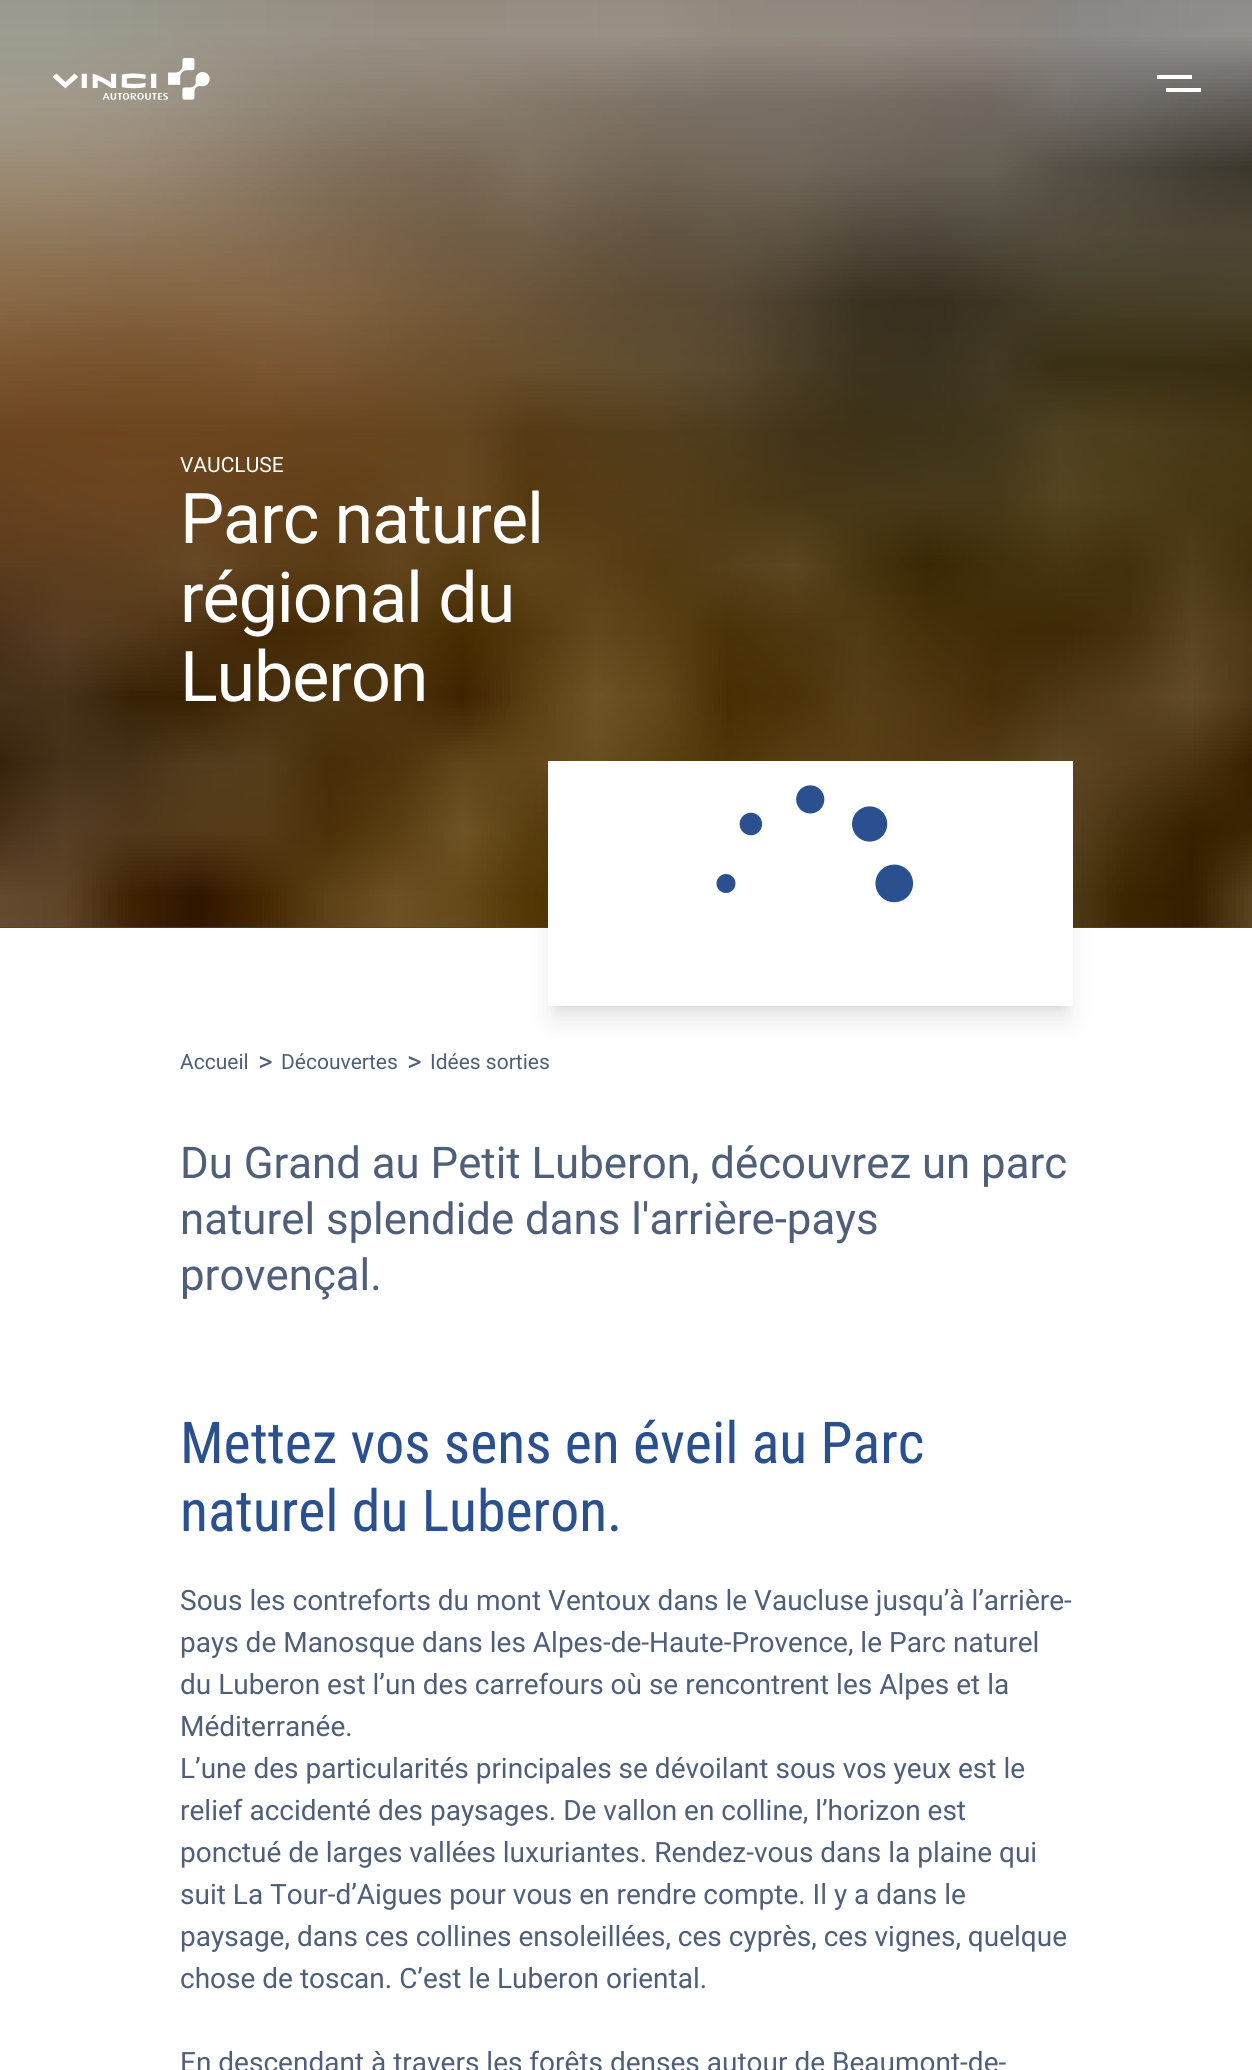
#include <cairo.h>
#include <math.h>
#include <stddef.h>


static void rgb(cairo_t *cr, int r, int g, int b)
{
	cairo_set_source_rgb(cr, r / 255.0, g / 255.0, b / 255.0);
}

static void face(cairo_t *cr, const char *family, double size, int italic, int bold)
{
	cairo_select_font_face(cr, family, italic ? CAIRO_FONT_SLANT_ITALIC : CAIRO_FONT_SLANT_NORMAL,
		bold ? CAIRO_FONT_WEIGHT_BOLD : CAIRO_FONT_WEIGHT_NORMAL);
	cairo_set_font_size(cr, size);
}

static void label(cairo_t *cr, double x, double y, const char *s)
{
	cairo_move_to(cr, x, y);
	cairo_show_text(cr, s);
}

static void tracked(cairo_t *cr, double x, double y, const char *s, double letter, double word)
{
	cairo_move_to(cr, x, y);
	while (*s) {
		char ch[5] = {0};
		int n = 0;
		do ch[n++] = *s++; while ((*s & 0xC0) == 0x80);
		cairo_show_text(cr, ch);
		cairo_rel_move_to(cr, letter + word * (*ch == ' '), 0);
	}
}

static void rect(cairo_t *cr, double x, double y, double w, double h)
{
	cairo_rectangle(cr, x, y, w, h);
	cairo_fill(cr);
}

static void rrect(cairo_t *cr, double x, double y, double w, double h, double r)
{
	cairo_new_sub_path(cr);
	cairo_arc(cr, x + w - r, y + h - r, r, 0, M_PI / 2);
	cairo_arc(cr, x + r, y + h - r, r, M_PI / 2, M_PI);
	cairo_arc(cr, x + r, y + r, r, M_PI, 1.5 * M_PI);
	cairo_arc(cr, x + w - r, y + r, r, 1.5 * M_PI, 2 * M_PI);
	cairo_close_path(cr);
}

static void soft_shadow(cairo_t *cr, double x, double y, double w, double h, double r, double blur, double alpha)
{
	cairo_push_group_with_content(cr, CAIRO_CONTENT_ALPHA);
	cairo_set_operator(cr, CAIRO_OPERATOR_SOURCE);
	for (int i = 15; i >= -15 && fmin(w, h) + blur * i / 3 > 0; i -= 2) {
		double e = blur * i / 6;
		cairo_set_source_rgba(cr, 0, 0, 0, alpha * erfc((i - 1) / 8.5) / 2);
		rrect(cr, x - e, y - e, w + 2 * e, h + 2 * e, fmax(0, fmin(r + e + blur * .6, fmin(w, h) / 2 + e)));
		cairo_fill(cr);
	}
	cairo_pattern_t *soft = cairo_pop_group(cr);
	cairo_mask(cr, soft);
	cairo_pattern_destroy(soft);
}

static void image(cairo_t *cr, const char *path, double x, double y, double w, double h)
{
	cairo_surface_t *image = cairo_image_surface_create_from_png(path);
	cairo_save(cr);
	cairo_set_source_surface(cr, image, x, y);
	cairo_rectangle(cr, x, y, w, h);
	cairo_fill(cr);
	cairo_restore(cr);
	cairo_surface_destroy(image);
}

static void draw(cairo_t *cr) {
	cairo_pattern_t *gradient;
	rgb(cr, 255, 255, 255);
	cairo_paint(cr);
	rgb(cr, 42, 80, 143);
	rect(cr, 0, 927, 1252, 1);
	image(cr, "image1.png", 0, 0, 1252, 928);
	gradient = cairo_pattern_create_linear(626, 0, 627, 1187);
	cairo_pattern_add_color_stop_rgba(gradient, 0, 0, 0, 0, 0.4);
	cairo_pattern_add_color_stop_rgba(gradient, 1, 0, 0, 0, 0);
	cairo_set_source(cr, gradient);
	cairo_pattern_destroy(gradient);
	rect(cr, 0, 0, 1252, 928);
	image(cr, "image0.png", 53, 58, 157, 42);
	rgb(cr, 255, 255, 255);
	rect(cr, 1157, 75, 35, 4);
	rect(cr, 1166, 88, 35, 4);
	face(cr, "Roboto", 21, 0, 0);
	label(cr, 180, 472, "VAUCLUSE");
	face(cr, "Roboto", 70, 0, 0);
	tracked(cr, 180, 543, "Parc naturel", -1.1, 0);
	tracked(cr, 180, 622, "régional du", -1.1, 0);
	tracked(cr, 180, 701, "Luberon", -1.1, 0);
	rgb(cr, 0, 0, 0);
	soft_shadow(cr, 555, 775, 511, 231, 0, 5, 0.1);
	soft_shadow(cr, 553, 784, 515, 235, 0, 13, 0.1);
	rgb(cr, 255, 255, 255);
	rect(cr, 548, 761, 525, 245);
	image(cr, "image2.png", 716, 785, 198, 118);
	face(cr, "Roboto", 21, 0, 0);
	rgb(cr, 79, 95, 122);
	label(cr, 180, 1069, "Accueil");
	face(cr, "Roboto", 28, 0, 0);
	label(cr, 258, 1071, ">");
	face(cr, "Roboto", 21, 0, 0);
	label(cr, 281, 1069, "Découvertes");
	face(cr, "Roboto", 28, 0, 0);
	label(cr, 407, 1071, ">");
	face(cr, "Roboto", 21, 0, 0);
	label(cr, 430, 1069, "Idées sorties");
	face(cr, "Roboto", 43.75, 0, 0);
	label(cr, 180, 1178, "Du Grand au Petit Luberon, découvrez un parc");
	label(cr, 180, 1234, "naturel splendide dans l'arrière-pays");
	label(cr, 180, 1290, "provençal.");
	face(cr, "Roboto Condensed", 57.75, 0, 0);
	rgb(cr, 42, 80, 143);
	label(cr, 180, 1463, "Mettez vos sens en éveil au Parc");
	label(cr, 180, 1531, "naturel du Luberon.");
	face(cr, "Roboto", 28, 0, 0);
	rgb(cr, 79, 95, 122);
	label(cr, 180, 1610, "Sous les contreforts du mont Ventoux dans le Vaucluse jusqu’à l’arrière-");
	label(cr, 180, 1652, "pays de Manosque dans les Alpes-de-Haute-Provence, le Parc naturel");
	label(cr, 180, 1694, "du Luberon est l’un des carrefours où se rencontrent les Alpes et la");
	label(cr, 180, 1736, "Méditerranée.");
	label(cr, 180, 1778, "L’une des particularités principales se dévoilant sous vos yeux est le");
	label(cr, 180, 1820, "relief accidenté des paysages. De vallon en colline, l’horizon est");
	label(cr, 180, 1862, "ponctué de larges vallées luxuriantes. Rendez-vous dans la plaine qui");
	label(cr, 180, 1904, "suit La Tour-d’Aigues pour vous en rendre compte. Il y a dans le");
	label(cr, 180, 1946, "paysage, dans ces collines ensoleillées, ces cyprès, ces vignes, quelque");
	label(cr, 180, 1988, "chose de toscan. C’est le Luberon oriental.");
	label(cr, 180, 2072, "En descendant à travers les forêts denses autour de Beaumont-de-");
}

int main(void) {
	cairo_surface_t *surface = cairo_image_surface_create(CAIRO_FORMAT_RGB24, 1252, 2070);
	cairo_t *cr = cairo_create(surface);
	cairo_font_options_t *options = cairo_font_options_create();
	cairo_font_options_set_hint_metrics(options, CAIRO_HINT_METRICS_OFF);
	cairo_font_options_set_hint_style(options, CAIRO_HINT_STYLE_NONE);
	cairo_set_font_options(cr, options);
	cairo_set_miter_limit(cr, 4);
	draw(cr);
	cairo_surface_write_to_png(surface, "render.png");
	cairo_font_options_destroy(options);
	cairo_destroy(cr);
	cairo_surface_destroy(surface);
	return 0;
}
